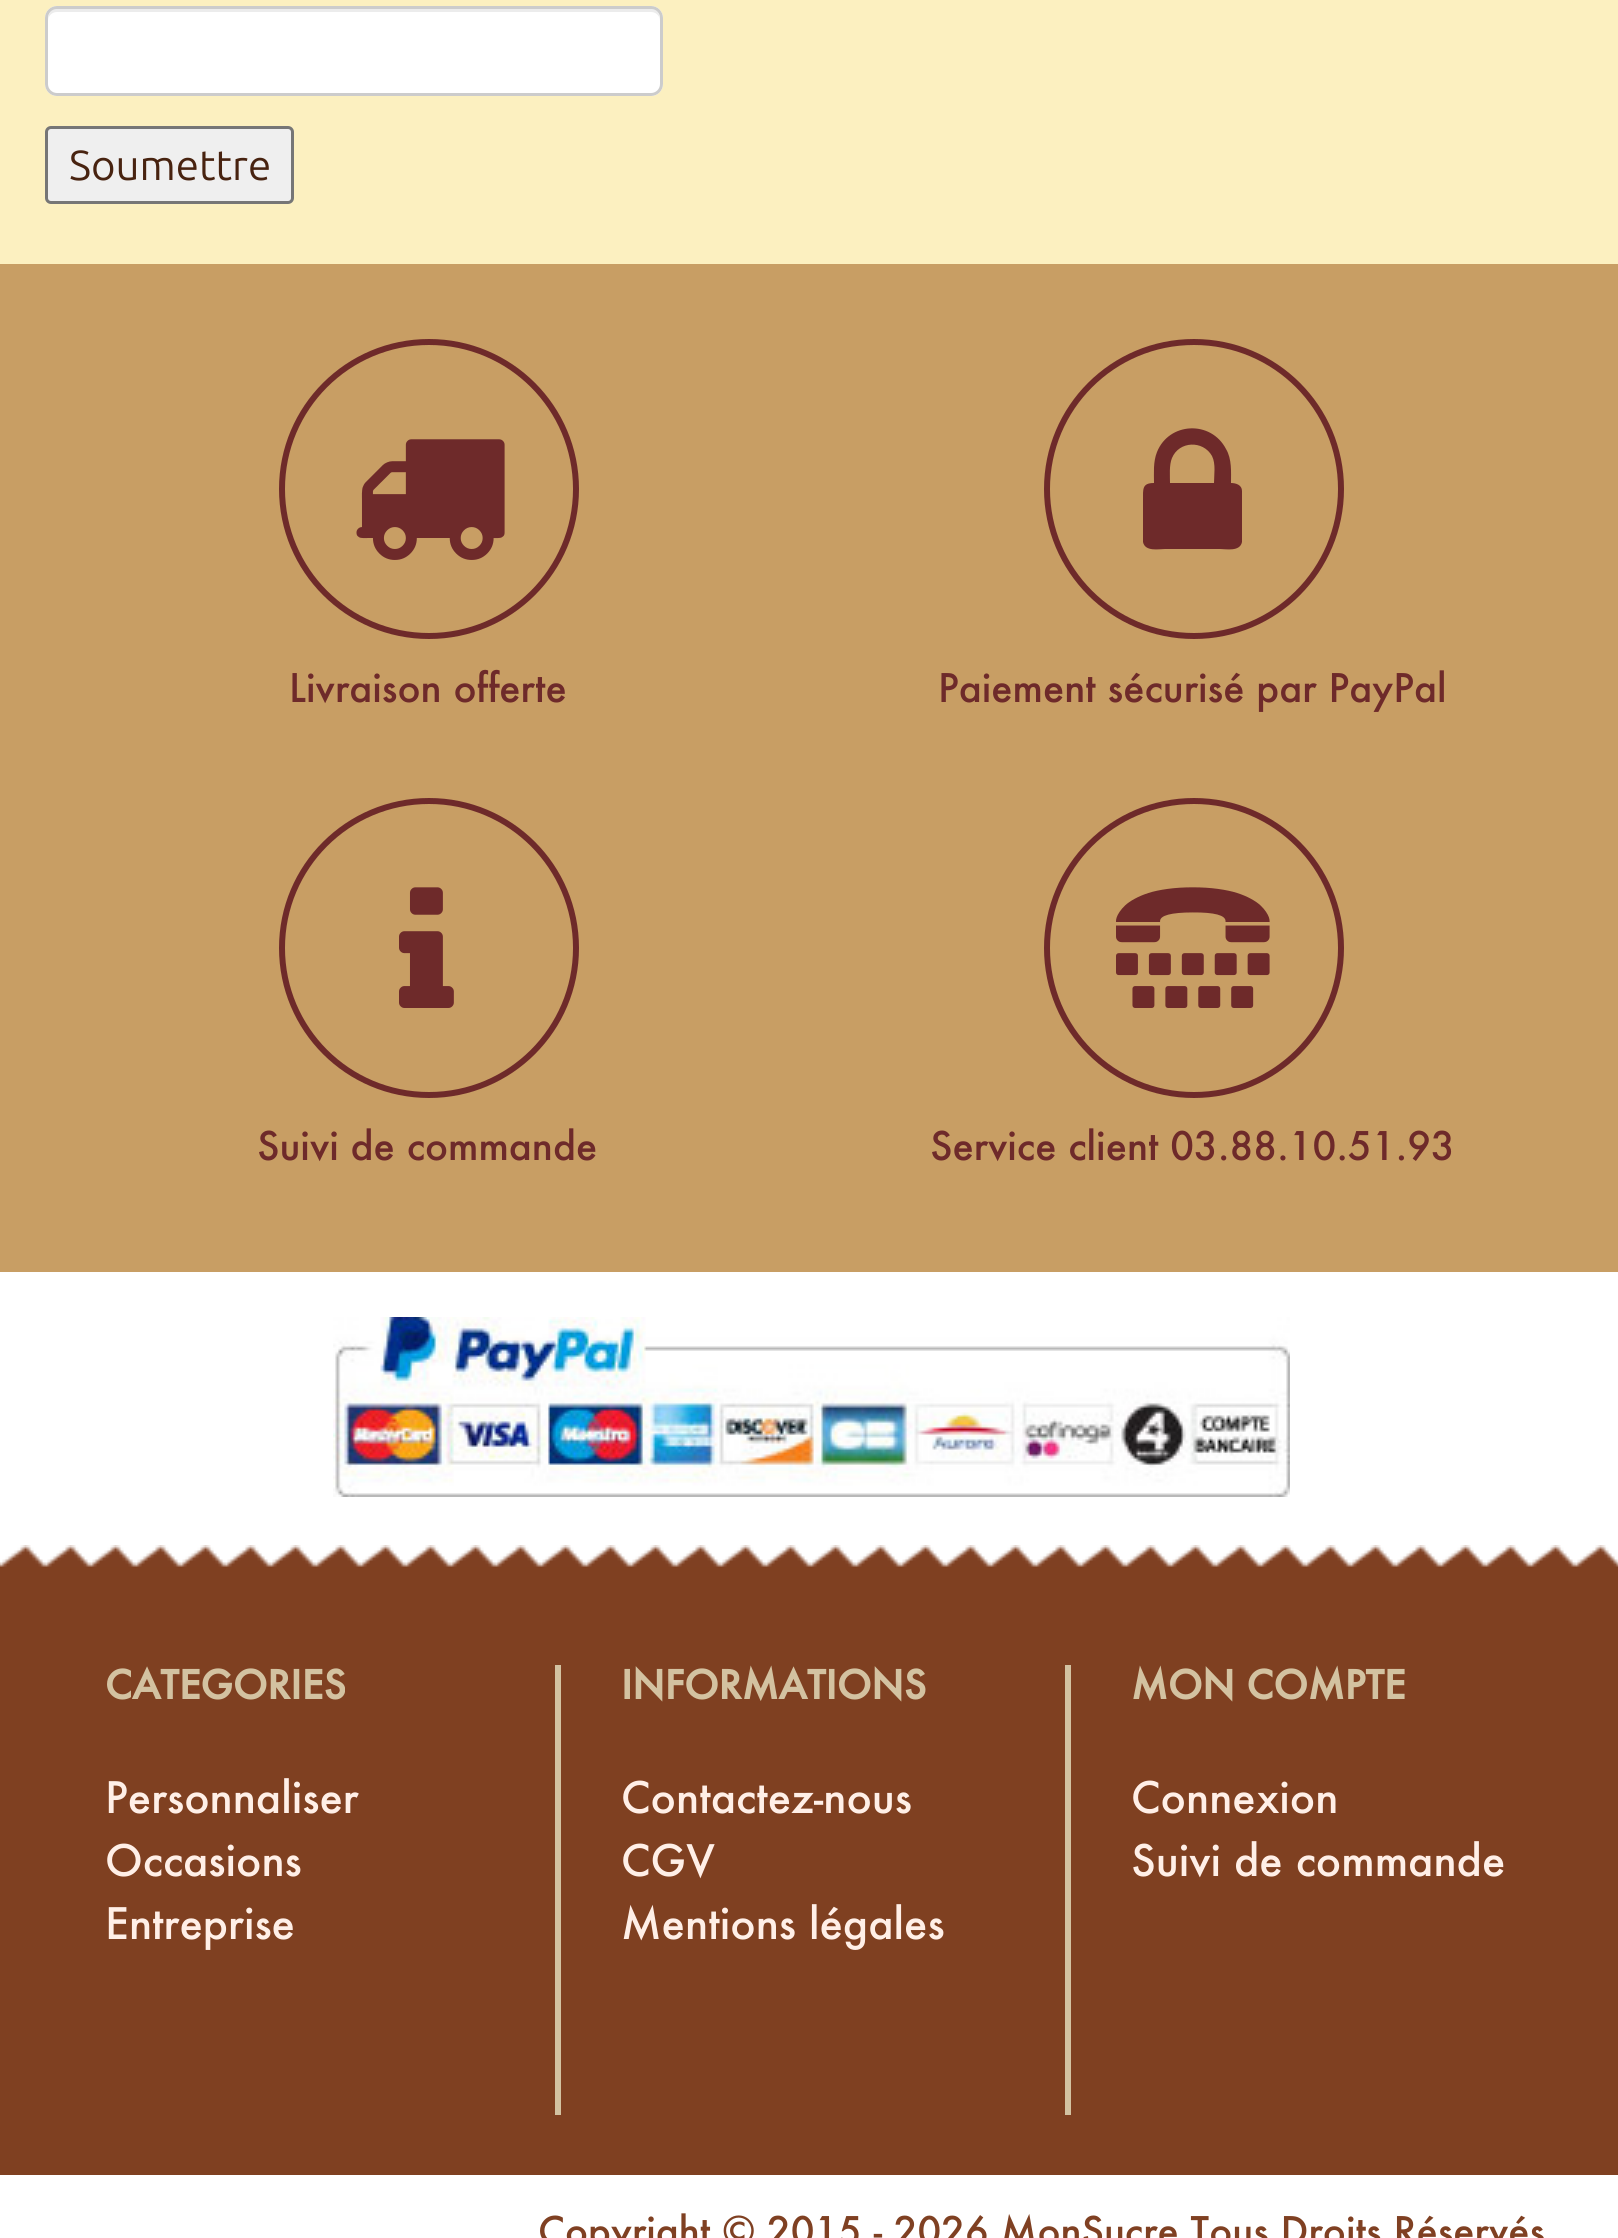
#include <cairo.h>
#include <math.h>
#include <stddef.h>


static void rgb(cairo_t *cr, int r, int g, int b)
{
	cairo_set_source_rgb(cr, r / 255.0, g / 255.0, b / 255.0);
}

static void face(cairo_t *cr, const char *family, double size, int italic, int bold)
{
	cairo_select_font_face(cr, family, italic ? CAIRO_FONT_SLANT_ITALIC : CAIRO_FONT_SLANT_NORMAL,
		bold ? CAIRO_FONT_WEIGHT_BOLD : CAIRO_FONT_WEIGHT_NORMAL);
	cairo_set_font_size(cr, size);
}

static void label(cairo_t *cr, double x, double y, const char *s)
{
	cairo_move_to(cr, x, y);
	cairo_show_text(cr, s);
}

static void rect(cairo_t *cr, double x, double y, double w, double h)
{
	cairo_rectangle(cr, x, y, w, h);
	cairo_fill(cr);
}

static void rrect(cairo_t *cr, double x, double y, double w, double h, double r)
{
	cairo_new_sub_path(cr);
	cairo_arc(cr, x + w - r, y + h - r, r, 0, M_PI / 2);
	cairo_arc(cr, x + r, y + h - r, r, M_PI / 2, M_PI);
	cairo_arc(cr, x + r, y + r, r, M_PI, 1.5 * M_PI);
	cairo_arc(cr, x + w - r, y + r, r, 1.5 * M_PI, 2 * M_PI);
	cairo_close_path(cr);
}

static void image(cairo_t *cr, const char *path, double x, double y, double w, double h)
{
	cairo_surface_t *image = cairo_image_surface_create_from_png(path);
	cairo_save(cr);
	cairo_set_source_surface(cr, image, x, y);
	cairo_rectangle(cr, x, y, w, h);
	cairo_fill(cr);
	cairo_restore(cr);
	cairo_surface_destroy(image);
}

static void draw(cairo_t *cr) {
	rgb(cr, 255, 255, 255);
	cairo_paint(cr);
	rgb(cr, 252, 240, 192);
	rect(cr, 0, 0, 1618, 264);
	rgb(cr, 255, 255, 255);
	rrect(cr, 45, 6, 618, 90, 12);
	cairo_fill(cr);
	rgb(cr, 236, 236, 236);
	cairo_new_path(cr);
	cairo_move_to(cr, 57, 12);
	cairo_line_to(cr, 651, 12);
	cairo_curve_to(cr, 656, 12, 660, 16, 660, 21);
	cairo_curve_to(cr, 660, 15, 658, 9, 651, 9);
	cairo_line_to(cr, 57, 9);
	cairo_curve_to(cr, 50, 9, 48, 15, 48, 21);
	cairo_curve_to(cr, 48, 16, 52, 12, 57, 12);
	cairo_close_path(cr);
	cairo_fill(cr);
	rrect(cr, 46.5, 7.5, 615, 87, 10.5);
	rgb(cr, 204, 204, 204);
	cairo_set_line_width(cr, 3);
	cairo_stroke(cr);
	rgb(cr, 239, 239, 239);
	rrect(cr, 46.5, 127.5, 246, 75, 4.5);
	cairo_fill_preserve(cr);
	rgb(cr, 118, 118, 118);
	cairo_stroke(cr);
	face(cr, "Ubuntu", 42, 0, 0);
	rgb(cr, 72, 35, 16);
	label(cr, 69, 180, "Soumettre");
	rgb(cr, 200, 158, 100);
	rect(cr, 0, 264, 1618, 1008);
	cairo_new_path(cr);
	cairo_arc(cr, 429, 489, 147, 0, 2 * M_PI);
	rgb(cr, 110, 42, 42);
	cairo_set_line_width(cr, 6);
	cairo_stroke(cr);
	image(cr, "image0.png", 356, 439, 149, 121);
	face(cr, "Futura Medium", 38.4, 0, 0);
	label(cr, 289, 702, "Livraison offerte");
	cairo_new_path(cr);
	cairo_arc(cr, 1194, 489, 147, 0, 2 * M_PI);
	cairo_stroke(cr);
	cairo_new_path(cr);
	cairo_move_to(cr, 1170, 483);
	cairo_line_to(cr, 1214, 483);
	cairo_curve_to(cr, 1214, 475, 1216, 464, 1212, 456);
	cairo_curve_to(cr, 1203, 440, 1179, 441, 1172, 458);
	cairo_curve_to(cr, 1169, 465, 1170, 476, 1170, 483);
	cairo_close_path(cr);
	cairo_move_to(cr, 1242, 491);
	cairo_line_to(cr, 1242, 542);
	cairo_curve_to(cr, 1240, 552, 1226, 549, 1220, 549);
	cairo_line_to(cr, 1165, 549);
	cairo_curve_to(cr, 1159, 549, 1145, 552, 1143, 542);
	cairo_line_to(cr, 1143, 500);
	cairo_curve_to(cr, 1143, 489, 1142, 483, 1154, 483);
	cairo_curve_to(cr, 1154, 473, 1153, 462, 1157, 452);
	cairo_curve_to(cr, 1169, 422, 1211, 420, 1226, 449);
	cairo_curve_to(cr, 1232, 459, 1231, 472, 1231, 483);
	cairo_curve_to(cr, 1236, 483, 1242, 485, 1242, 491);
	cairo_close_path(cr);
	cairo_fill(cr);
	label(cr, 938, 702, "Paiement sécurisé par PayPal");
	cairo_new_path(cr);
	cairo_arc(cr, 429, 948, 147, 0, 2 * M_PI);
	cairo_stroke(cr);
	image(cr, "image1.png", 399, 887, 55, 121);
	label(cr, 257, 1160, "Suivi de commande");
	cairo_new_path(cr);
	cairo_arc(cr, 1194, 948, 147, 0, 2 * M_PI);
	cairo_stroke(cr);
	image(cr, "image2.png", 1116, 887, 154, 121);
	label(cr, 930, 1160, "Service client 03.88.10.51.93");
	image(cr, "image3.png", 333, 1317, 957, 180);
	rgb(cr, 127, 64, 33);
	rect(cr, 0, 1567, 1618, 608);
	image(cr, "image4.png", 0, 1545, 1618, 22);
	face(cr, "Futura", 38.4, 0, 1);
	rgb(cr, 211, 194, 161);
	label(cr, 105, 1699, "CATEGORIES");
	face(cr, "Futura Medium", 42.25, 0, 0);
	rgb(cr, 255, 239, 231);
	label(cr, 105, 1813, "Personnaliser");
	label(cr, 105, 1876, "Occasions");
	label(cr, 105, 1939, "Entreprise");
	rgb(cr, 211, 194, 161);
	rect(cr, 555, 1665, 6, 450);
	face(cr, "Futura", 38.4, 0, 1);
	label(cr, 621, 1699, "INFORMATIONS");
	face(cr, "Futura Medium", 42.25, 0, 0);
	rgb(cr, 255, 239, 231);
	label(cr, 621, 1813, "Contactez-nous");
	label(cr, 621, 1876, "CGV");
	label(cr, 621, 1939, "Mentions légales");
	rgb(cr, 211, 194, 161);
	rect(cr, 1065, 1665, 6, 450);
	face(cr, "Futura", 38.4, 0, 1);
	label(cr, 1131, 1699, "MON COMPTE");
	face(cr, "Futura Medium", 42.25, 0, 0);
	rgb(cr, 255, 239, 231);
	label(cr, 1131, 1813, "Connexion");
	label(cr, 1131, 1876, "Suivi de commande");
	face(cr, "Futura Medium", 38.4, 0, 0);
	rgb(cr, 127, 64, 34);
	label(cr, 538, 2245, "Copyright © 2015 - 2026 MonSucre Tous Droits Réservés");
}

int main(void) {
	cairo_surface_t *surface = cairo_image_surface_create(CAIRO_FORMAT_RGB24, 1618, 2238);
	cairo_t *cr = cairo_create(surface);
	cairo_font_options_t *options = cairo_font_options_create();
	cairo_font_options_set_hint_metrics(options, CAIRO_HINT_METRICS_OFF);
	cairo_font_options_set_hint_style(options, CAIRO_HINT_STYLE_NONE);
	cairo_set_font_options(cr, options);
	cairo_set_miter_limit(cr, 4);
	draw(cr);
	cairo_surface_write_to_png(surface, "render.png");
	cairo_font_options_destroy(options);
	cairo_destroy(cr);
	cairo_surface_destroy(surface);
	return 0;
}
